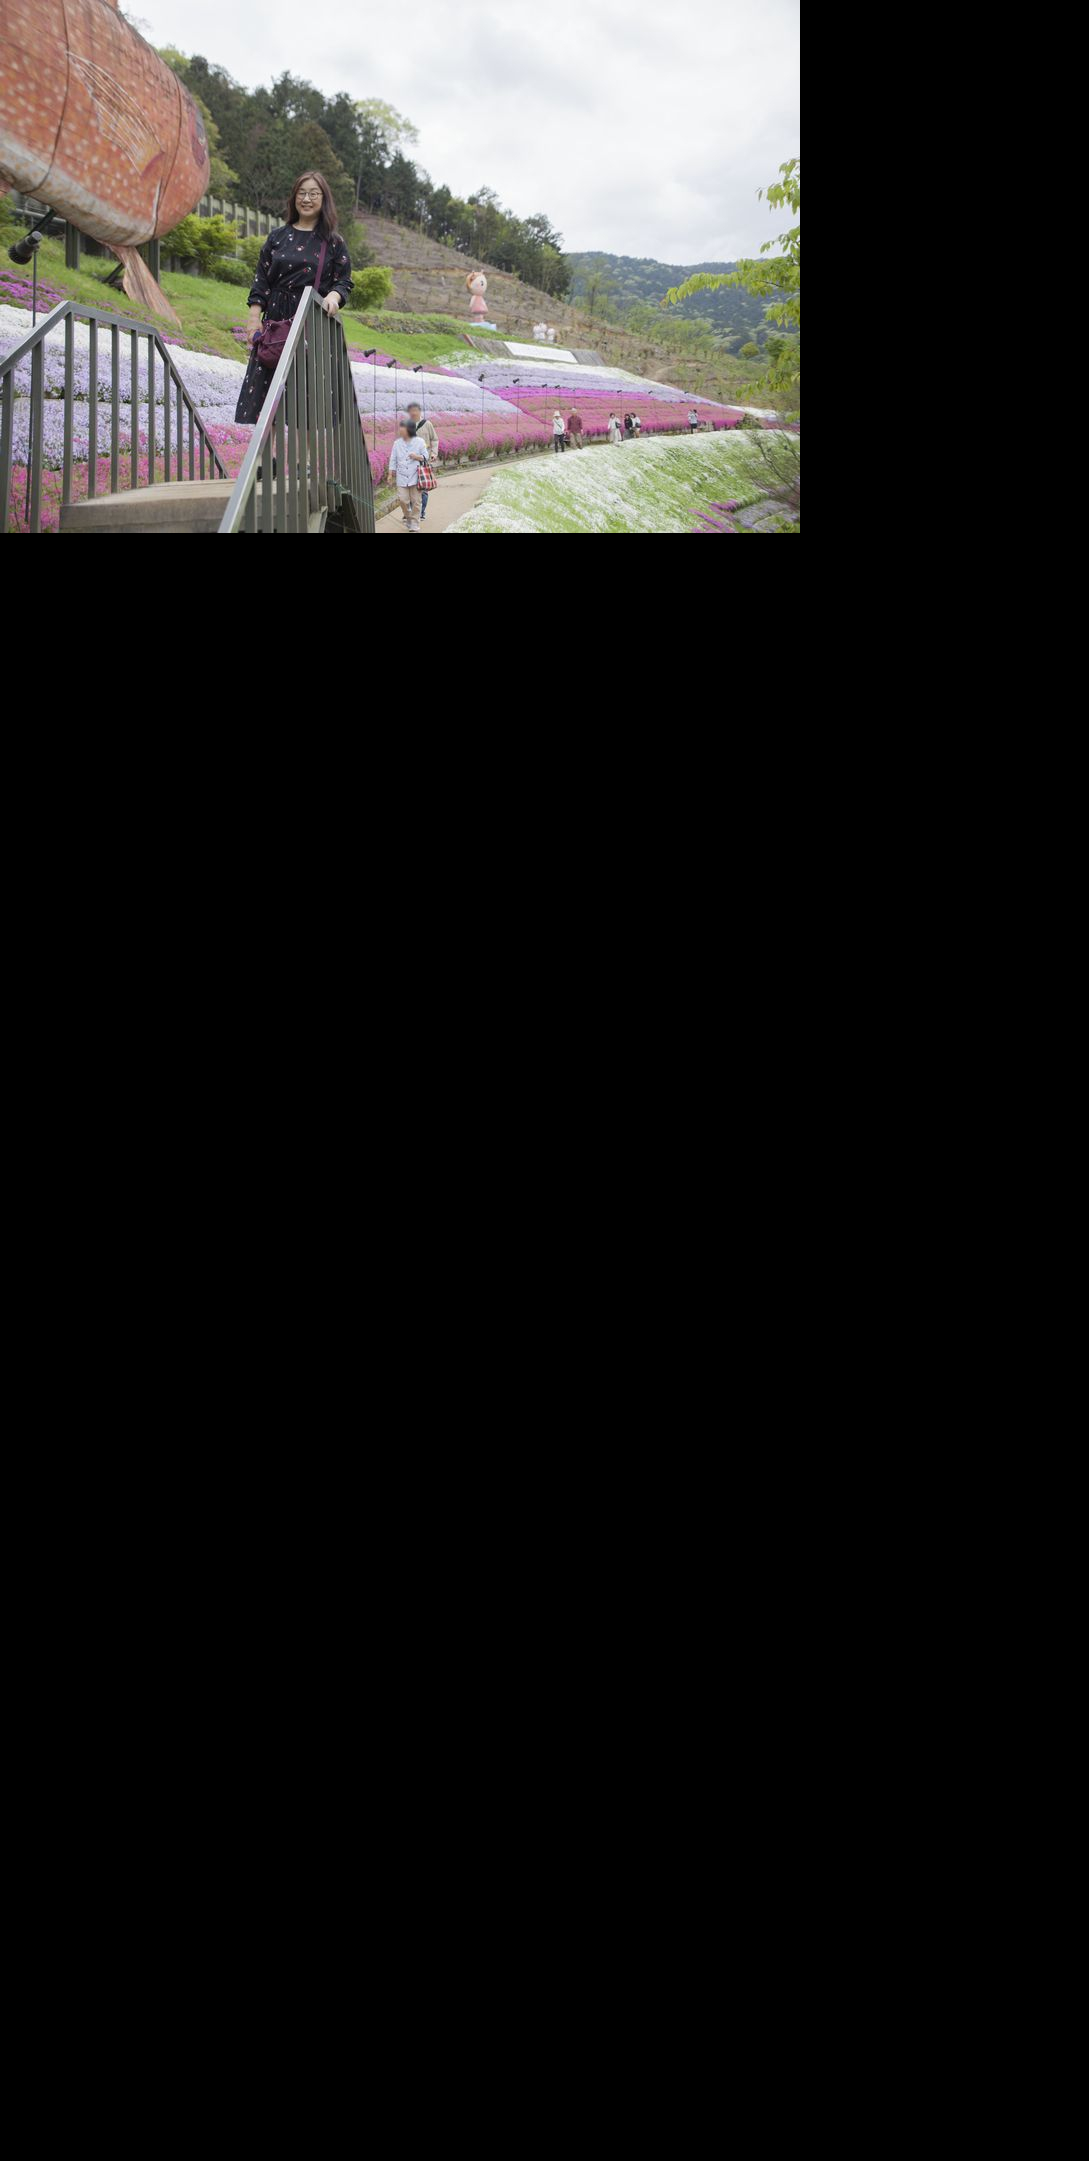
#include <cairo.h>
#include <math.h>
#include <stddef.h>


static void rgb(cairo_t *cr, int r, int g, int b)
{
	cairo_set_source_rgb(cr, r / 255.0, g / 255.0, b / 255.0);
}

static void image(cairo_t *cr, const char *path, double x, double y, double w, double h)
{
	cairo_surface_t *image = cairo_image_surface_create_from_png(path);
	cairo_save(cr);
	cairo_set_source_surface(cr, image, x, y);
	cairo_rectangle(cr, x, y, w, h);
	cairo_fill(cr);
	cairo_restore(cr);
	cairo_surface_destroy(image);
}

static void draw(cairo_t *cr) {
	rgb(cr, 0, 0, 0);
	cairo_paint(cr);
	image(cr, "image0.png", 0, 0, 800, 533);
}

int main(void) {
	cairo_surface_t *surface = cairo_image_surface_create(CAIRO_FORMAT_RGB24, 1089, 2161);
	cairo_t *cr = cairo_create(surface);
	cairo_font_options_t *options = cairo_font_options_create();
	cairo_font_options_set_hint_metrics(options, CAIRO_HINT_METRICS_OFF);
	cairo_font_options_set_hint_style(options, CAIRO_HINT_STYLE_NONE);
	cairo_set_font_options(cr, options);
	cairo_set_miter_limit(cr, 4);
	draw(cr);
	cairo_surface_write_to_png(surface, "render.png");
	cairo_font_options_destroy(options);
	cairo_destroy(cr);
	cairo_surface_destroy(surface);
	return 0;
}
